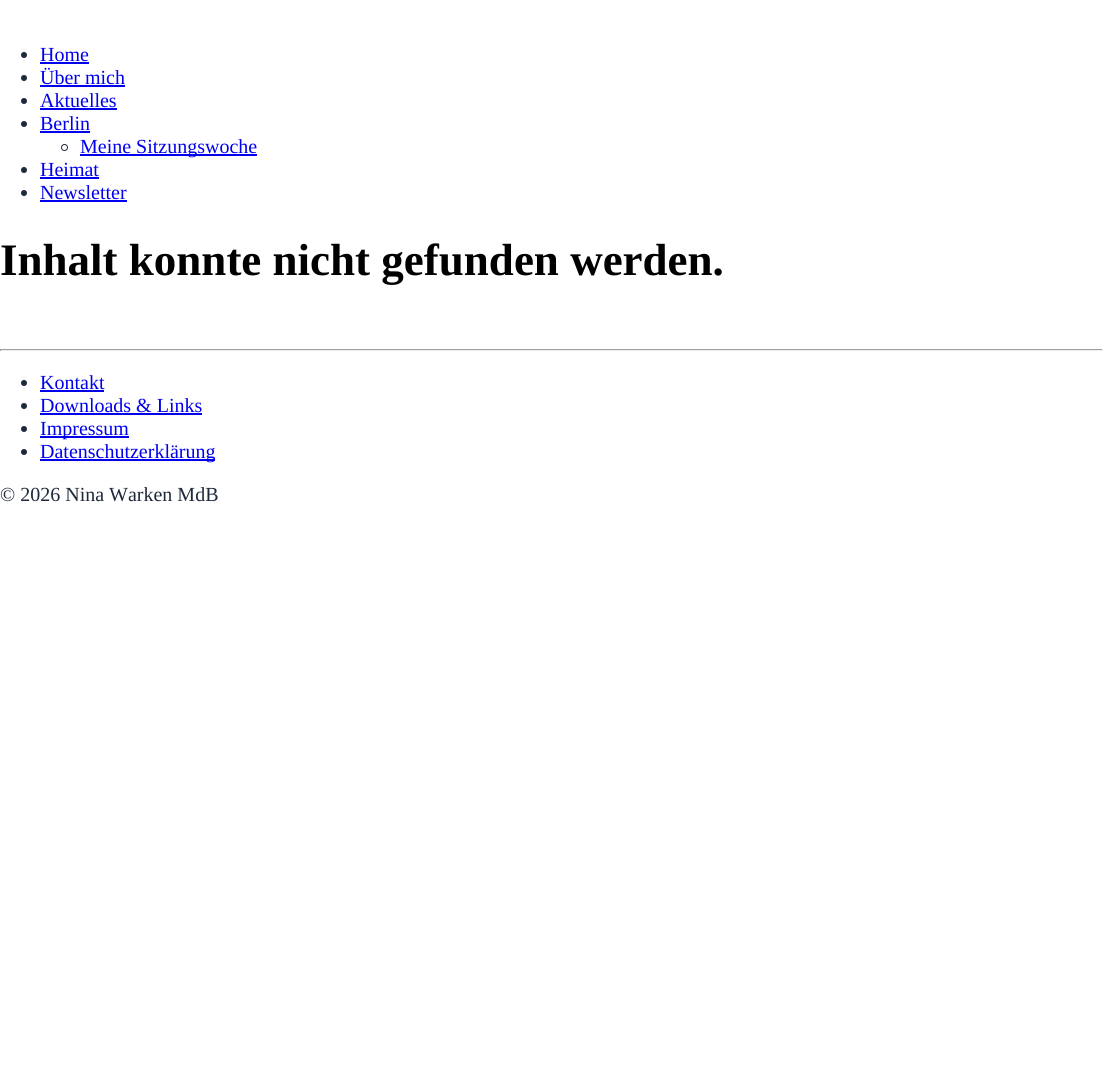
#include <cairo.h>
#include <math.h>
#include <stddef.h>


static void rgb(cairo_t *cr, int r, int g, int b)
{
	cairo_set_source_rgb(cr, r / 255.0, g / 255.0, b / 255.0);
}

static void face(cairo_t *cr, const char *family, double size, int italic, int bold)
{
	cairo_select_font_face(cr, family, italic ? CAIRO_FONT_SLANT_ITALIC : CAIRO_FONT_SLANT_NORMAL,
		bold ? CAIRO_FONT_WEIGHT_BOLD : CAIRO_FONT_WEIGHT_NORMAL);
	cairo_set_font_size(cr, size);
}

static void label(cairo_t *cr, double x, double y, const char *s)
{
	cairo_move_to(cr, x, y);
	cairo_show_text(cr, s);
}

static void rect(cairo_t *cr, double x, double y, double w, double h)
{
	cairo_rectangle(cr, x, y, w, h);
	cairo_fill(cr);
}

static void draw(cairo_t *cr) {
	rgb(cr, 255, 255, 255);
	cairo_paint(cr);
	rgb(cr, 30, 41, 59);
	cairo_arc(cr, 24, 55, 3, 0, 2 * M_PI);
	cairo_fill(cr);
	face(cr, "Liberation Serif", 20, 0, 0);
	rgb(cr, 0, 0, 238);
	label(cr, 40, 61, "Home");
	rect(cr, 40, 62, 49, 2);
	rgb(cr, 30, 41, 59);
	cairo_new_path(cr);
	cairo_arc(cr, 24, 78, 3, 0, 2 * M_PI);
	cairo_fill(cr);
	rgb(cr, 0, 0, 238);
	label(cr, 40, 84, "Über mich");
	rect(cr, 40, 85, 85, 2);
	rgb(cr, 30, 41, 59);
	cairo_new_path(cr);
	cairo_arc(cr, 24, 101, 3, 0, 2 * M_PI);
	cairo_fill(cr);
	rgb(cr, 0, 0, 238);
	label(cr, 40, 107, "Aktuelles");
	rect(cr, 40, 108, 77, 2);
	rgb(cr, 30, 41, 59);
	cairo_new_path(cr);
	cairo_arc(cr, 24, 124, 3, 0, 2 * M_PI);
	cairo_fill(cr);
	rgb(cr, 0, 0, 238);
	label(cr, 40, 130, "Berlin");
	rect(cr, 40, 131, 50, 2);
	cairo_new_path(cr);
	cairo_arc(cr, 64.5, 147.5, 3, 0, 2 * M_PI);
	rgb(cr, 30, 41, 59);
	cairo_set_line_width(cr, 1);
	cairo_stroke(cr);
	rgb(cr, 0, 0, 238);
	rect(cr, 80, 154, 177, 2);
	label(cr, 80, 153, "Meine Sitzungswoche");
	rgb(cr, 30, 41, 59);
	cairo_new_path(cr);
	cairo_arc(cr, 24, 170, 3, 0, 2 * M_PI);
	cairo_fill(cr);
	rgb(cr, 0, 0, 238);
	label(cr, 40, 176, "Heimat");
	rect(cr, 40, 177, 59, 2);
	rgb(cr, 30, 41, 59);
	cairo_new_path(cr);
	cairo_arc(cr, 24, 193, 3, 0, 2 * M_PI);
	cairo_fill(cr);
	rgb(cr, 0, 0, 238);
	label(cr, 40, 199, "Newsletter");
	rect(cr, 40, 200, 87, 2);
	face(cr, "Liberation Serif", 45, 0, 1);
	rgb(cr, 0, 0, 0);
	label(cr, 0, 275, "Inhalt konnte nicht gefunden werden.");
	rgb(cr, 159, 159, 159);
	rect(cr, 0, 349, 1103, 1);
	rgb(cr, 238, 238, 238);
	rect(cr, 1102, 349, 1, 2);
	rect(cr, 0, 350, 1103, 1);
	rgb(cr, 159, 159, 159);
	rect(cr, 0, 349, 1, 2);
	rgb(cr, 30, 41, 59);
	cairo_new_path(cr);
	cairo_arc(cr, 24, 383, 3, 0, 2 * M_PI);
	cairo_fill(cr);
	face(cr, "Liberation Serif", 20, 0, 0);
	rgb(cr, 0, 0, 238);
	label(cr, 40, 389, "Kontakt");
	rect(cr, 40, 390, 64, 2);
	rgb(cr, 30, 41, 59);
	cairo_new_path(cr);
	cairo_arc(cr, 24, 406, 3, 0, 2 * M_PI);
	cairo_fill(cr);
	rgb(cr, 0, 0, 238);
	label(cr, 40, 412, "Downloads & Links");
	rect(cr, 40, 413, 162, 2);
	rgb(cr, 30, 41, 59);
	cairo_new_path(cr);
	cairo_arc(cr, 24, 429, 3, 0, 2 * M_PI);
	cairo_fill(cr);
	rgb(cr, 0, 0, 238);
	rect(cr, 40, 436, 89, 2);
	label(cr, 40, 435, "Impressum");
	rgb(cr, 30, 41, 59);
	cairo_new_path(cr);
	cairo_arc(cr, 24, 452, 3, 0, 2 * M_PI);
	cairo_fill(cr);
	rgb(cr, 0, 0, 238);
	rect(cr, 40, 459, 175, 2);
	label(cr, 40, 458, "Datenschutzerklärung");
	rgb(cr, 30, 41, 59);
	label(cr, 0, 501, "© 2026 Nina Warken MdB");
}

int main(void) {
	cairo_surface_t *surface = cairo_image_surface_create(CAIRO_FORMAT_RGB24, 1103, 1066);
	cairo_t *cr = cairo_create(surface);
	cairo_font_options_t *options = cairo_font_options_create();
	cairo_font_options_set_hint_metrics(options, CAIRO_HINT_METRICS_OFF);
	cairo_font_options_set_hint_style(options, CAIRO_HINT_STYLE_NONE);
	cairo_set_font_options(cr, options);
	cairo_set_miter_limit(cr, 4);
	draw(cr);
	cairo_surface_write_to_png(surface, "render.png");
	cairo_font_options_destroy(options);
	cairo_destroy(cr);
	cairo_surface_destroy(surface);
	return 0;
}
